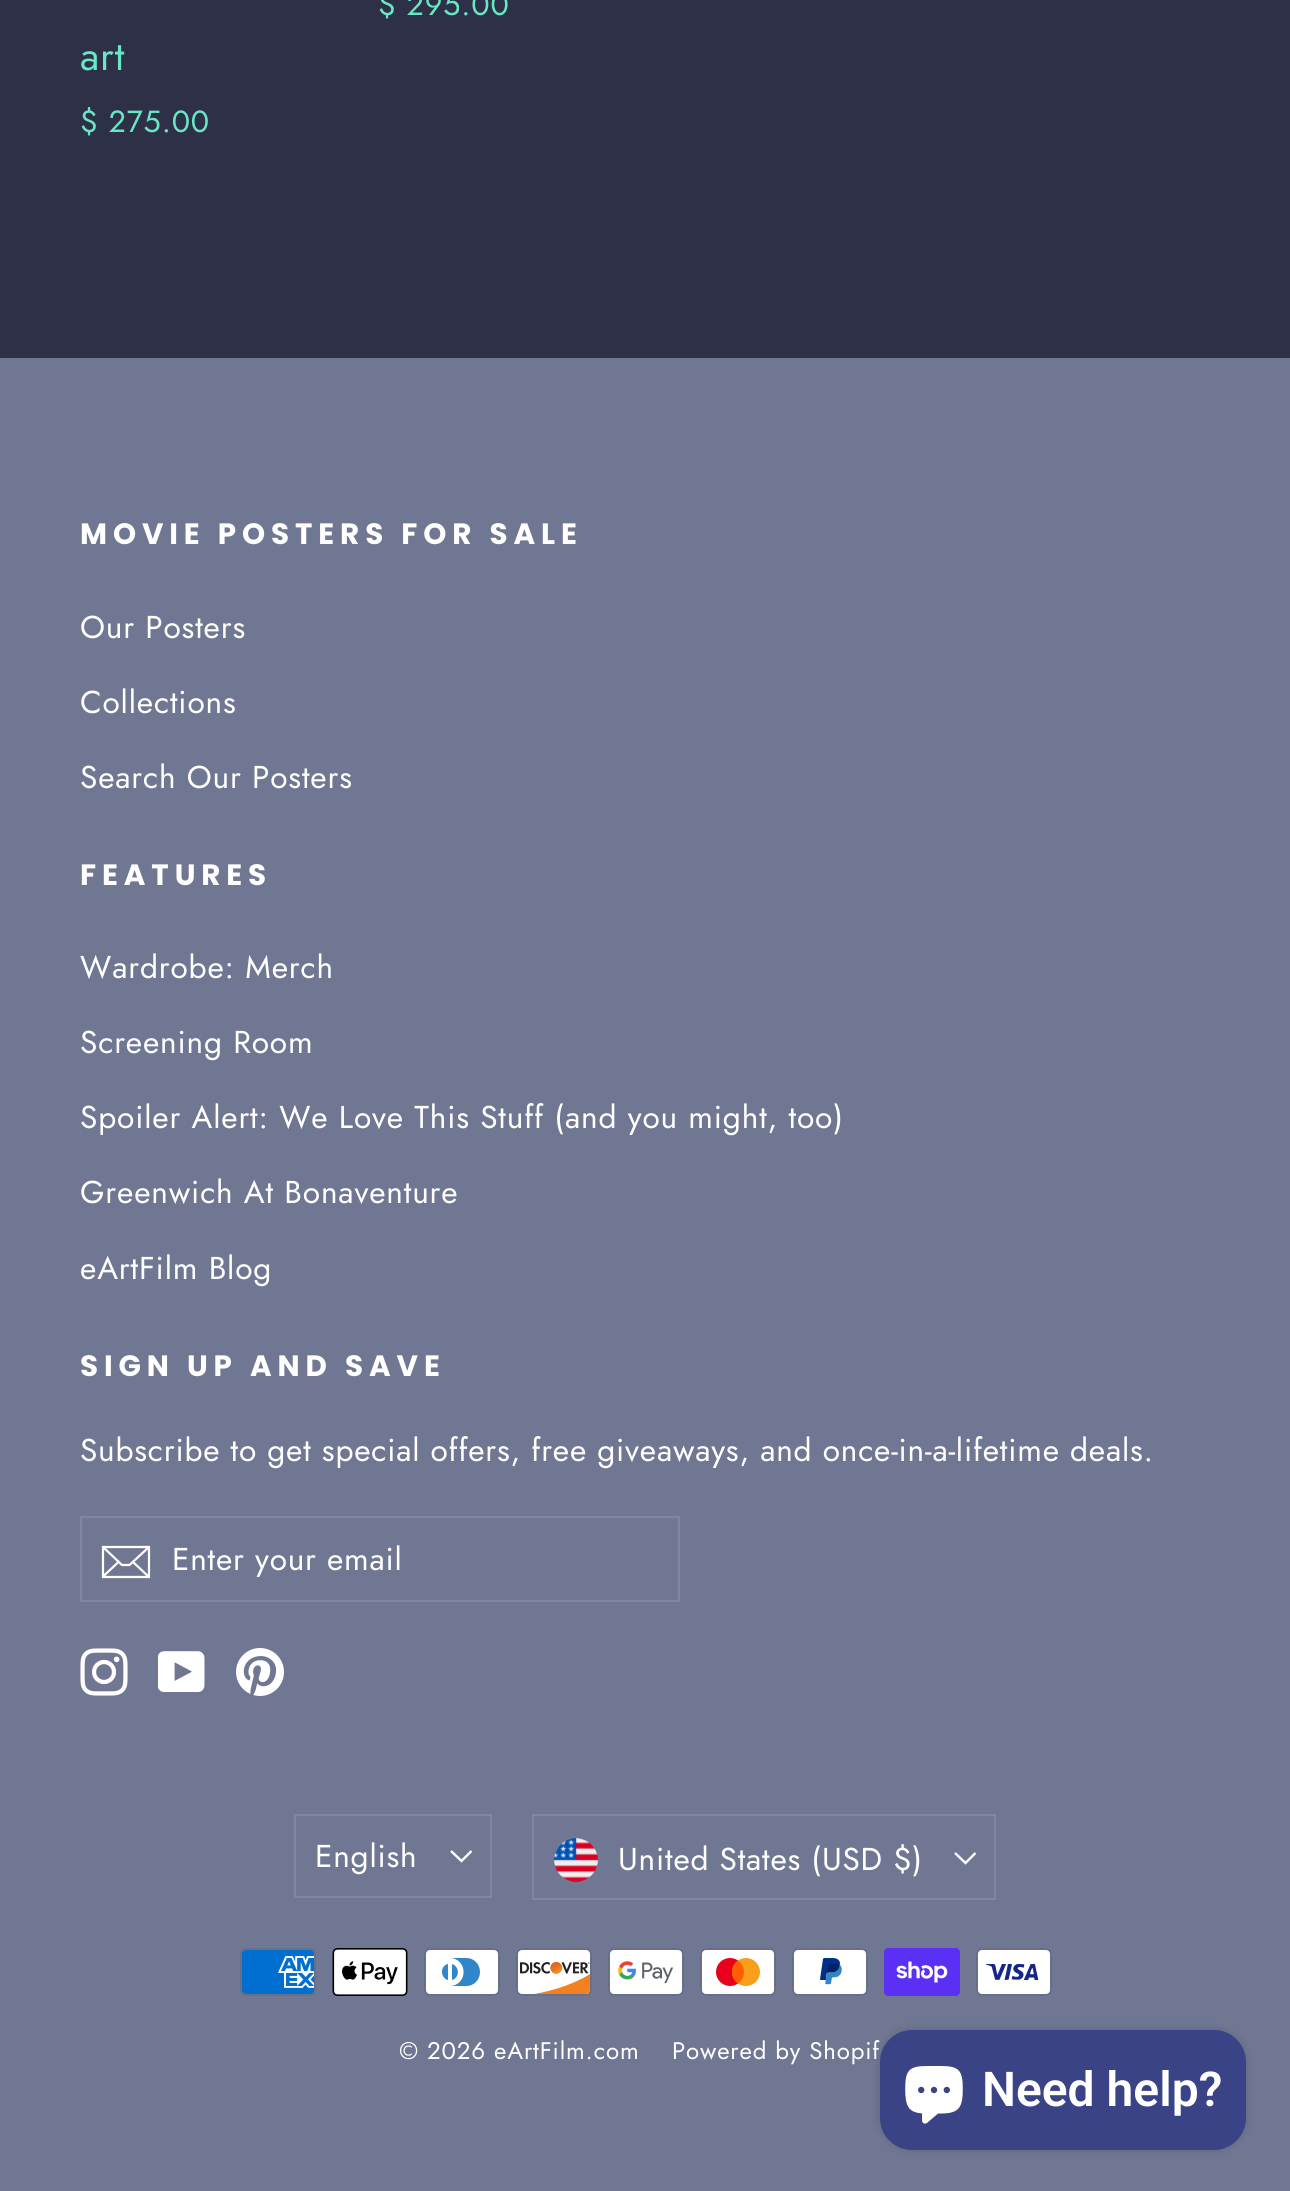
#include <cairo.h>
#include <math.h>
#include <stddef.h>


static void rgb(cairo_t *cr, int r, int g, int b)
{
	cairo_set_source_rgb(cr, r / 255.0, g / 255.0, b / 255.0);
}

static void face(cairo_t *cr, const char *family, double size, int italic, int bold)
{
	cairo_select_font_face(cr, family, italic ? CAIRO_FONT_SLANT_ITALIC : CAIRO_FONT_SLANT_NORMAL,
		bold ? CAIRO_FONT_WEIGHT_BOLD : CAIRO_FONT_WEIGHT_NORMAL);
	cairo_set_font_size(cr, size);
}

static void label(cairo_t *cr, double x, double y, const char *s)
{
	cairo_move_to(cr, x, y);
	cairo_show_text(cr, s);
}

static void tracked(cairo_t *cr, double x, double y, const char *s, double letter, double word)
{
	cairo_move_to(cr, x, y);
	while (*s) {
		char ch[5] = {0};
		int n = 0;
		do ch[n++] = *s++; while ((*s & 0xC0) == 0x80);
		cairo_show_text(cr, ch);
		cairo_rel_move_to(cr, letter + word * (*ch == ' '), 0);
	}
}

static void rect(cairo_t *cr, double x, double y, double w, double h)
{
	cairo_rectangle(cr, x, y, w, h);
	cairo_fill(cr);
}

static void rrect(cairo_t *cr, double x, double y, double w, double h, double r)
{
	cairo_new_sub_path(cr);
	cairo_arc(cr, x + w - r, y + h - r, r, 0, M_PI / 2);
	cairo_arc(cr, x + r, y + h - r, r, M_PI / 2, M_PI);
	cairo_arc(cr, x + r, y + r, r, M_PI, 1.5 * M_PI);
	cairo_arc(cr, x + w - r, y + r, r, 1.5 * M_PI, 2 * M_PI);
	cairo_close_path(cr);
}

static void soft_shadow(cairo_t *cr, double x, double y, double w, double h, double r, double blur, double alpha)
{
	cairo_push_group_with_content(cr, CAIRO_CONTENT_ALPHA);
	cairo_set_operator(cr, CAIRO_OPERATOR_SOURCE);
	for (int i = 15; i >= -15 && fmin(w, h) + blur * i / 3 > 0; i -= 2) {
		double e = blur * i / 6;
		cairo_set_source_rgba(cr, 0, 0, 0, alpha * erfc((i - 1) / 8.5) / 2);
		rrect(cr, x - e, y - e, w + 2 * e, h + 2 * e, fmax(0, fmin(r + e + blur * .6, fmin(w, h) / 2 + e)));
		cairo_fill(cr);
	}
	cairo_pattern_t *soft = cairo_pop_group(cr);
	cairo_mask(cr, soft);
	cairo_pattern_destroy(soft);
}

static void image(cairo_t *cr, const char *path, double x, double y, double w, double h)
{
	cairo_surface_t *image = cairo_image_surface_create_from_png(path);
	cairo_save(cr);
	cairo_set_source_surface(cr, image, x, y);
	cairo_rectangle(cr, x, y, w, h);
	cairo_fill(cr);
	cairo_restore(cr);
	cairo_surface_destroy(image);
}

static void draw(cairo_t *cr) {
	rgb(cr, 46, 48, 71);
	cairo_paint(cr);
	face(cr, "Jost", 30.5, 0, 0);
	rgb(cr, 103, 231, 196);
	tracked(cr, 378, 15, "$ 295.00", 0.85, 0);
	face(cr, "Jost", 40, 0, 0);
	tracked(cr, 80, 70, "art", 0.85, 0);
	face(cr, "Jost", 30.5, 0, 0);
	tracked(cr, 80, 132, "$ 275.00", 0.85, 0);
	rgb(cr, 112, 119, 147);
	rect(cr, 0, 358, 1290, 1833);
	face(cr, "Poppins", 29.4, 0, 1);
	rgb(cr, 255, 255, 255);
	tracked(cr, 80, 544, "MOVIE POSTERS FOR SALE", 5.9, 0);
	face(cr, "Jost", 31.6, 0, 0);
	tracked(cr, 80, 638, "Our Posters", 0.85, 0);
	tracked(cr, 80, 713, "Collections", 0.85, 0);
	tracked(cr, 80, 788, "Search Our Posters", 0.85, 0);
	face(cr, "Poppins", 29.4, 0, 1);
	tracked(cr, 80, 885, "FEATURES", 5.9, 0);
	face(cr, "Jost", 31.6, 0, 0);
	tracked(cr, 80, 978, "Wardrobe: Merch", 0.85, 0);
	tracked(cr, 80, 1053, "Screening Room", 0.85, 0);
	tracked(cr, 80, 1128, "Spoiler Alert: We Love This Stuff (and you might, too)", 0.85, 0);
	tracked(cr, 80, 1203, "Greenwich At Bonaventure", 0.85, 0);
	tracked(cr, 80, 1279, "eArtFilm Blog", 0.85, 0);
	face(cr, "Poppins", 29.4, 0, 1);
	tracked(cr, 80, 1376, "SIGN UP AND SAVE", 5.9, 0);
	face(cr, "Jost", 31.6, 0, 0);
	tracked(cr, 80, 1461, "Subscribe to get special offers, free giveaways, and once-in-a-lifetime deals.", 0.8, 0);
	cairo_rectangle(cr, 81, 1517, 598, 84);
	rgb(cr, 129, 135, 160);
	cairo_stroke(cr);
	cairo_new_path(cr);
	cairo_move_to(cr, 149, 1577);
	cairo_line_to(cr, 103, 1577);
	cairo_line_to(cr, 103, 1547);
	cairo_line_to(cr, 149, 1547);
	cairo_close_path(cr);
	cairo_move_to(cr, 103, 1547);
	cairo_line_to(cr, 122, 1565);
	cairo_line_to(cr, 129.5, 1565);
	cairo_line_to(cr, 149, 1547);
	cairo_move_to(cr, 118.5, 1562);
	cairo_line_to(cr, 103, 1576.5);
	cairo_move_to(cr, 149, 1577);
	cairo_line_to(cr, 133, 1562);
	rgb(cr, 255, 255, 255);
	cairo_set_line_width(cr, 2.2);
	cairo_stroke(cr);
	tracked(cr, 172, 1570, "Enter your email", 0.8, 0);
	image(cr, "image0.png", 80, 1648, 48, 48);
	image(cr, "image1.png", 158, 1651, 47, 41);
	image(cr, "image2.png", 236, 1648, 48, 48);
	cairo_rectangle(cr, 295, 1815, 196, 82);
	rgb(cr, 129, 135, 160);
	cairo_set_line_width(cr, 2);
	cairo_stroke(cr);
	rgb(cr, 255, 255, 255);
	tracked(cr, 315, 1867, "English", 0.8, 0);
	cairo_new_path(cr);
	cairo_move_to(cr, 451, 1851);
	cairo_line_to(cr, 461.5, 1861);
	cairo_line_to(cr, 471.5, 1851);
	cairo_set_line_width(cr, 2.4);
	cairo_stroke(cr);
	cairo_rectangle(cr, 533, 1815, 462, 84);
	rgb(cr, 129, 135, 160);
	cairo_set_line_width(cr, 2);
	cairo_stroke(cr);
	image(cr, "image3.png", 554, 1838, 44, 44);
	rgb(cr, 255, 255, 255);
	tracked(cr, 618, 1870, "United States (USD $)", 0.8, 0);
	cairo_new_path(cr);
	cairo_move_to(cr, 955, 1853);
	cairo_line_to(cr, 965.5, 1863);
	cairo_line_to(cr, 975.5, 1853);
	cairo_set_line_width(cr, 2.4);
	cairo_stroke(cr);
	image(cr, "image4.png", 240, 1948, 76, 48);
	image(cr, "image5.png", 332, 1948, 76, 48);
	image(cr, "image6.png", 424, 1948, 76, 48);
	image(cr, "image7.png", 516, 1948, 76, 48);
	image(cr, "image8.png", 608, 1948, 76, 48);
	image(cr, "image9.png", 700, 1948, 76, 48);
	image(cr, "image10.png", 792, 1948, 76, 48);
	image(cr, "image11.png", 884, 1948, 76, 48);
	image(cr, "image12.png", 976, 1948, 76, 48);
	face(cr, "Jost", 24, 0, 0);
	tracked(cr, 399, 2059, "© 2026 eArtFilm.com", 0.85, 0);
	tracked(cr, 672, 2059, "Powered by Shopif", 0.85, 0);
	rgb(cr, 0, 0, 0);
	soft_shadow(cr, 880, 2030, 366, 120, 32, 5, 0.15);
	rgb(cr, 59, 67, 135);
	rrect(cr, 880, 2030, 366, 120, 32);
	cairo_fill(cr);
	image(cr, "image13.png", 905, 2066, 58, 58);
	face(cr, "Roboto SemiBold", 48, 0, 0);
	rgb(cr, 255, 255, 255);
	label(cr, 982, 2106, "Need help?");
}

int main(void) {
	cairo_surface_t *surface = cairo_image_surface_create(CAIRO_FORMAT_RGB24, 1290, 2191);
	cairo_t *cr = cairo_create(surface);
	cairo_font_options_t *options = cairo_font_options_create();
	cairo_font_options_set_hint_metrics(options, CAIRO_HINT_METRICS_OFF);
	cairo_font_options_set_hint_style(options, CAIRO_HINT_STYLE_NONE);
	cairo_set_font_options(cr, options);
	cairo_set_miter_limit(cr, 4);
	draw(cr);
	cairo_surface_write_to_png(surface, "render.png");
	cairo_font_options_destroy(options);
	cairo_destroy(cr);
	cairo_surface_destroy(surface);
	return 0;
}
